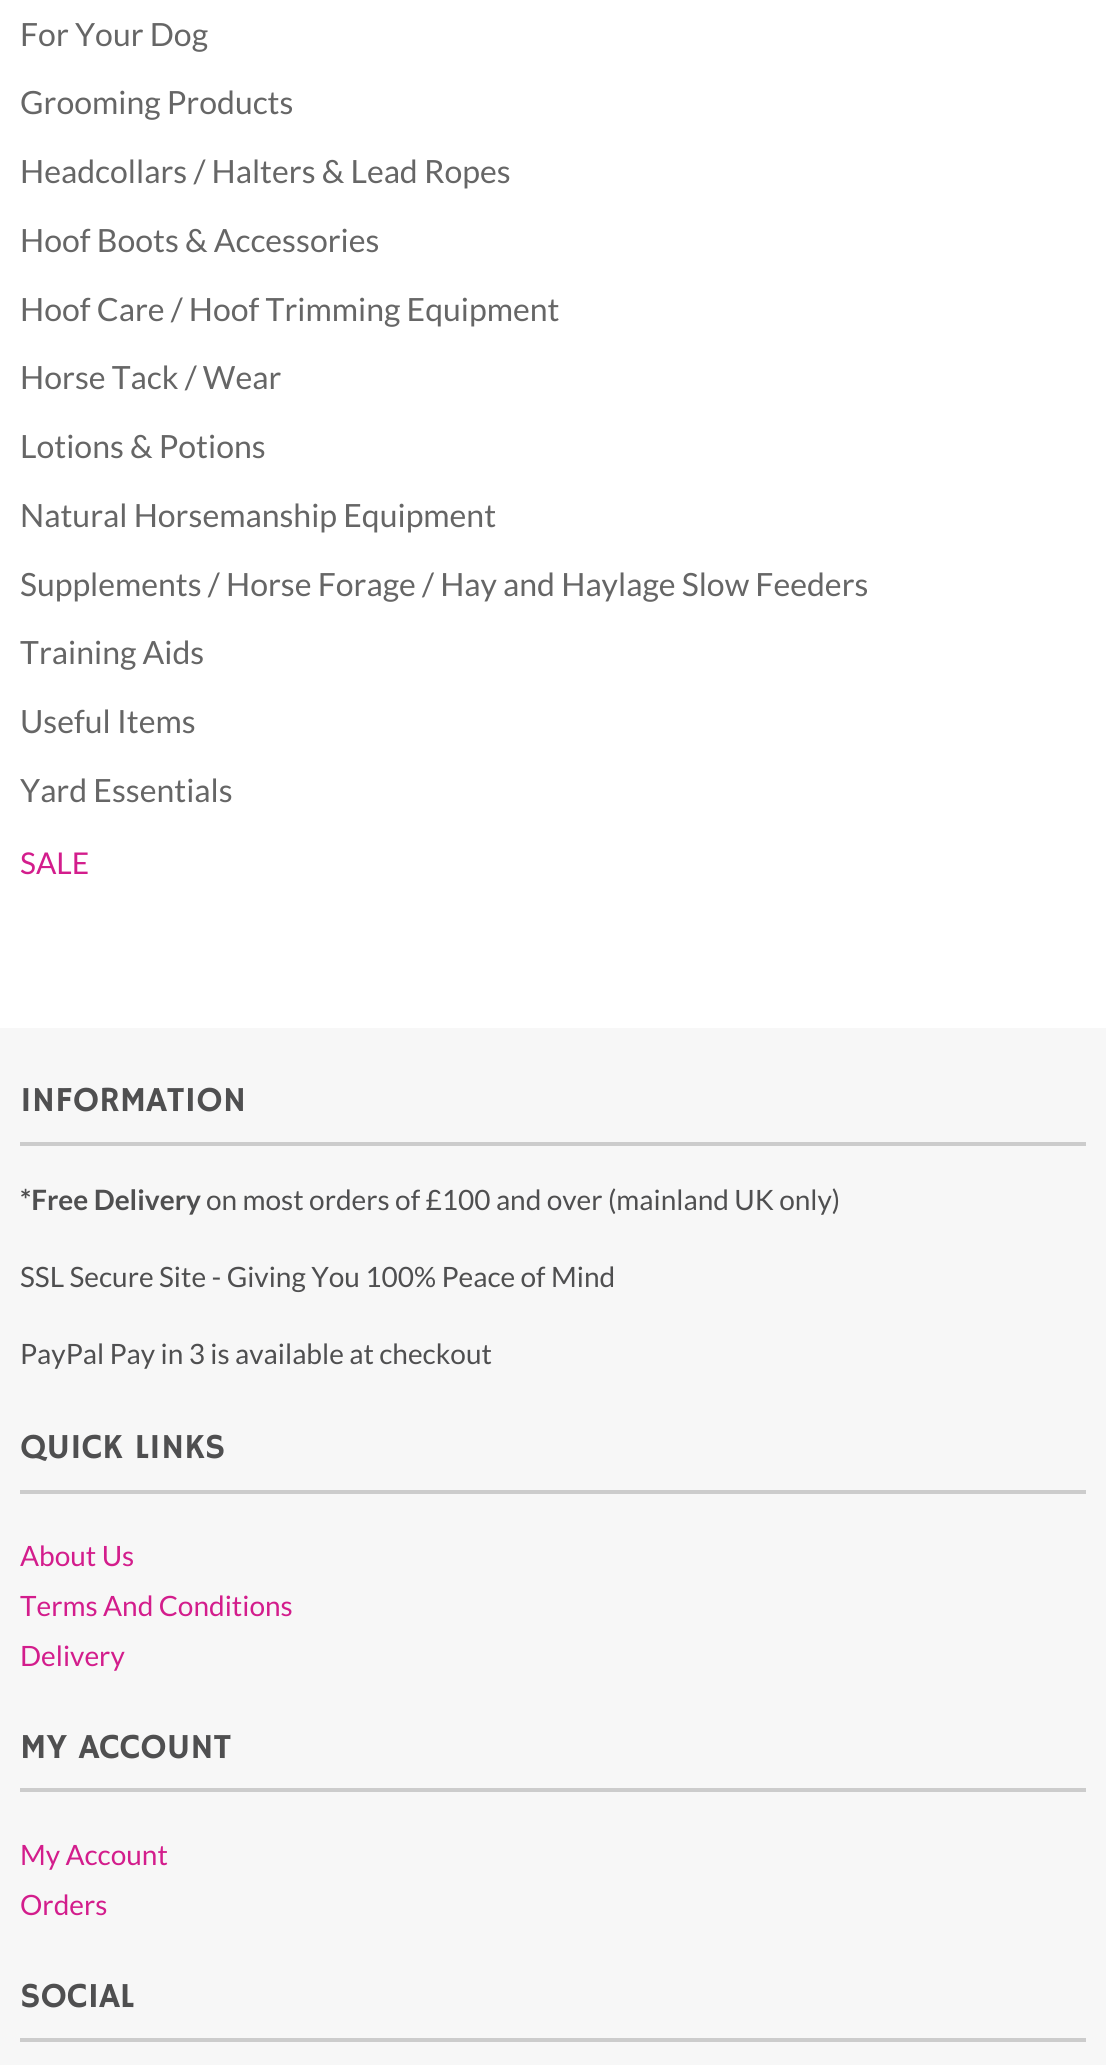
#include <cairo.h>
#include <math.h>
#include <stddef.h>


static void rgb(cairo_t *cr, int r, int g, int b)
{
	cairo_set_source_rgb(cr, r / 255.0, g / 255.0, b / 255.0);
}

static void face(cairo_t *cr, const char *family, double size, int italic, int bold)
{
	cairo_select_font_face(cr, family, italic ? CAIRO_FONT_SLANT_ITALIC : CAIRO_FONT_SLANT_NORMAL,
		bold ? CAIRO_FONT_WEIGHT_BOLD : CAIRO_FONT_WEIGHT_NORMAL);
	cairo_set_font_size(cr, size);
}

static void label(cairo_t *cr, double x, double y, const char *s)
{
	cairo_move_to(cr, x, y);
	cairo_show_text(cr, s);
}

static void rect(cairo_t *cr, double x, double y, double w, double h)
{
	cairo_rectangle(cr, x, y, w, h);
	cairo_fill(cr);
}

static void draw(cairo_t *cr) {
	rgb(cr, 255, 255, 255);
	cairo_paint(cr);
	face(cr, "Lato", 32, 0, 0);
	rgb(cr, 102, 102, 102);
	label(cr, 20, 46, "For Your Dog");
	label(cr, 20, 114, "Grooming Products");
	label(cr, 20, 183, "Headcollars / Halters & Lead Ropes");
	label(cr, 20, 252, "Hoof Boots & Accessories");
	label(cr, 20, 321, "Hoof Care / Hoof Trimming Equipment");
	label(cr, 20, 389, "Horse Tack / Wear");
	label(cr, 20, 458, "Lotions & Potions");
	label(cr, 20, 527, "Natural Horsemanship Equipment");
	label(cr, 20, 596, "Supplements / Horse Forage / Hay and Haylage Slow Feeders");
	label(cr, 20, 664, "Training Aids");
	label(cr, 20, 733, "Useful Items");
	label(cr, 20, 802, "Yard Essentials");
	face(cr, "Lato", 30, 0, 0);
	rgb(cr, 211, 29, 140);
	label(cr, 20, 874, "SALE");
	rgb(cr, 247, 247, 247);
	rect(cr, 0, 1028, 1106, 1037);
	rgb(cr, 204, 204, 204);
	rect(cr, 20, 1142, 1066, 4);
	face(cr, "Hammersmith One", 35.25, 0, 0);
	rgb(cr, 79, 79, 80);
	label(cr, 20, 1111, "INFORMATION");
	face(cr, "Lato", 28, 0, 1);
	label(cr, 20, 1210, "*Free Delivery");
	face(cr, "Lato", 28, 0, 0);
	label(cr, 206, 1210, "on most orders of £100 and over (mainland UK only)");
	label(cr, 20, 1287, "SSL Secure Site - Giving You 100% Peace of Mind");
	label(cr, 20, 1364, "PayPal Pay in 3 is available at checkout");
	rgb(cr, 204, 204, 204);
	rect(cr, 20, 1490, 1066, 4);
	face(cr, "Hammersmith One", 35.25, 0, 0);
	rgb(cr, 79, 79, 80);
	label(cr, 20, 1458, "QUICK LINKS");
	face(cr, "Lato", 28, 0, 0);
	rgb(cr, 211, 29, 140);
	label(cr, 20, 1566, "About Us");
	label(cr, 20, 1616, "Terms And Conditions");
	label(cr, 20, 1666, "Delivery");
	rgb(cr, 204, 204, 204);
	rect(cr, 20, 1788, 1066, 4);
	face(cr, "Hammersmith One", 35.25, 0, 0);
	rgb(cr, 79, 79, 80);
	label(cr, 20, 1758, "MY ACCOUNT");
	face(cr, "Lato", 28, 0, 0);
	rgb(cr, 211, 29, 140);
	label(cr, 20, 1865, "My Account");
	label(cr, 20, 1915, "Orders");
	rgb(cr, 204, 204, 204);
	rect(cr, 20, 2038, 1066, 4);
	face(cr, "Hammersmith One", 35.25, 0, 0);
	rgb(cr, 79, 79, 80);
	label(cr, 20, 2007, "SOCIAL");
}

int main(void) {
	cairo_surface_t *surface = cairo_image_surface_create(CAIRO_FORMAT_RGB24, 1106, 2065);
	cairo_t *cr = cairo_create(surface);
	cairo_font_options_t *options = cairo_font_options_create();
	cairo_font_options_set_hint_metrics(options, CAIRO_HINT_METRICS_OFF);
	cairo_font_options_set_hint_style(options, CAIRO_HINT_STYLE_NONE);
	cairo_set_font_options(cr, options);
	cairo_set_miter_limit(cr, 4);
	draw(cr);
	cairo_surface_write_to_png(surface, "render.png");
	cairo_font_options_destroy(options);
	cairo_destroy(cr);
	cairo_surface_destroy(surface);
	return 0;
}
